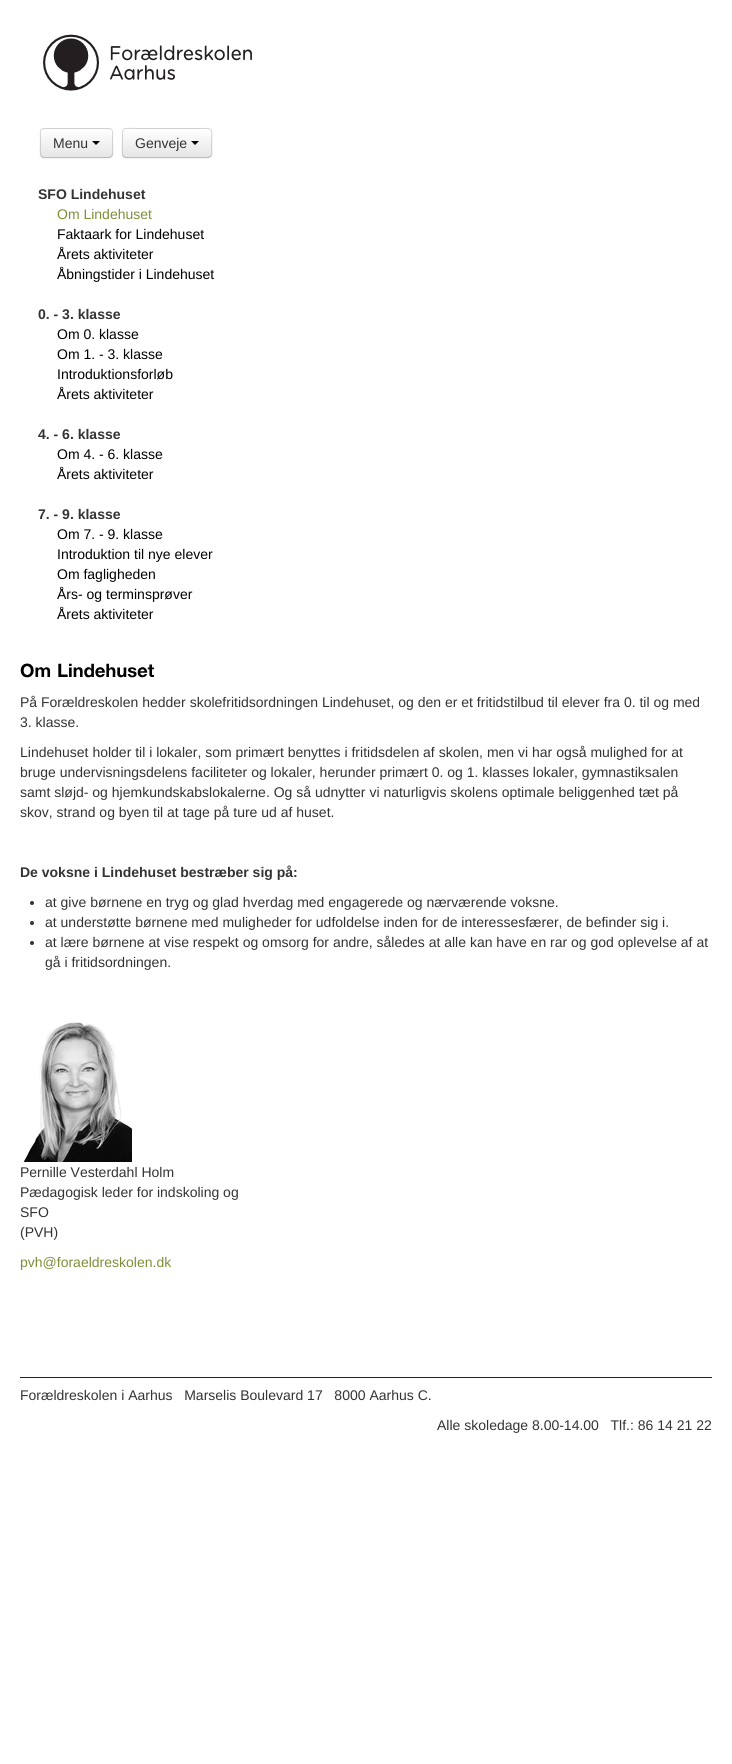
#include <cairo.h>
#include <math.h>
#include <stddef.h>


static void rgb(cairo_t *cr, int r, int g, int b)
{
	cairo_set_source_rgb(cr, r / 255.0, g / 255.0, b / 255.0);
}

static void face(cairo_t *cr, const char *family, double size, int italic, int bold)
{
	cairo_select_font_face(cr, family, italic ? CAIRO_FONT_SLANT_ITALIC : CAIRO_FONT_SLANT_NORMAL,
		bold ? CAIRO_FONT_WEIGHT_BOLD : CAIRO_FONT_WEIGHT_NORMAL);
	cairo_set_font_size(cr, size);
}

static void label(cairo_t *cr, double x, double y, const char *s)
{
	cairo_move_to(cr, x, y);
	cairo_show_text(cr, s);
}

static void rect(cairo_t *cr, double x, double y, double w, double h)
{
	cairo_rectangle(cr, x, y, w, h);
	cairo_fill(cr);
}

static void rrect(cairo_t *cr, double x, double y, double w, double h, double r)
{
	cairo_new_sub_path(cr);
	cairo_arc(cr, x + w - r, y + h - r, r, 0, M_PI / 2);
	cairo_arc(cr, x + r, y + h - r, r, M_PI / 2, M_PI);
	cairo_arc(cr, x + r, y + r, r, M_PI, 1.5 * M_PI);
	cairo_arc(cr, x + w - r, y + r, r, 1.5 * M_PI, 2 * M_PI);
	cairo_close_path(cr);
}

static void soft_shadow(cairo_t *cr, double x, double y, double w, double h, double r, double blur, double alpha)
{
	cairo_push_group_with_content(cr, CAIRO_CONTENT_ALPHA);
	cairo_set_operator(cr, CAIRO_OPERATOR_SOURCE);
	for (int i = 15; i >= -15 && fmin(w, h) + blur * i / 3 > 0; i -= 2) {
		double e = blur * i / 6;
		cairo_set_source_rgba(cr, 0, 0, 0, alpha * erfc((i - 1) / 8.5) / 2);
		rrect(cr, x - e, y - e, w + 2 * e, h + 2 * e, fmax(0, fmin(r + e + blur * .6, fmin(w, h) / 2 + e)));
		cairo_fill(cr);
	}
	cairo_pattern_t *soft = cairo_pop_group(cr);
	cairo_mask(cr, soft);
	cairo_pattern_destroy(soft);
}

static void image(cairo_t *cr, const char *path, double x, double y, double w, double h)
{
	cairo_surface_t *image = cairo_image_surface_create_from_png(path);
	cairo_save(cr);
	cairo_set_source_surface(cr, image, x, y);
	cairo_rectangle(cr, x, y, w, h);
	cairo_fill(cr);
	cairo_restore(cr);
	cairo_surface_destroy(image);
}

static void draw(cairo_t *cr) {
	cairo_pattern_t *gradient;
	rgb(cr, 255, 255, 255);
	cairo_paint(cr);
	image(cr, "image0.png", 43, 34, 209, 57);
	rgb(cr, 0, 0, 0);
	soft_shadow(cr, 40, 129, 73, 30, 4, 1, 0.05);
	rgb(cr, 245, 245, 245);
	rrect(cr, 40, 128, 73, 30, 4);
	cairo_fill(cr);
	cairo_save(cr);
	rrect(cr, 40, 128, 73, 30, 4);
	cairo_clip(cr);
	gradient = cairo_pattern_create_linear(77, 129, 77, 157);
	cairo_pattern_add_color_stop_rgba(gradient, 0, 1, 1, 1, 1);
	cairo_pattern_add_color_stop_rgba(gradient, 1, 0.902, 0.902, 0.902, 1);
	cairo_set_source(cr, gradient);
	cairo_pattern_destroy(gradient);
	rect(cr, 40, 129, 73, 28);
	cairo_restore(cr);
	cairo_new_path(cr);
	cairo_move_to(cr, 111.5, 156.5);
	cairo_line_to(cr, 109.5, 157.5);
	cairo_line_to(cr, 43.5, 157.5);
	cairo_line_to(cr, 41.5, 156.5);
	cairo_set_source_rgba(cr, 0, 0, 0, 0.25);
	cairo_set_line_width(cr, 1);
	cairo_stroke(cr);
	cairo_new_path(cr);
	cairo_move_to(cr, 41.5, 156.5);
	cairo_curve_to(cr, 39.5, 154.5, 40.5, 146, 40.5, 143);
	cairo_curve_to(cr, 40.5, 126.5, 38, 128.5, 55, 128.5);
	cairo_line_to(cr, 98, 128.5);
	cairo_curve_to(cr, 115, 128.5, 112.5, 126.5, 112.5, 143);
	cairo_curve_to(cr, 112.5, 146, 113.5, 154.5, 111.5, 156.5);
	cairo_set_source_rgba(cr, 0, 0, 0, 0.15);
	cairo_stroke(cr);
	face(cr, "Liberation Sans", 14, 0, 0);
	rgb(cr, 51, 51, 51);
	label(cr, 53, 148, "Menu");
	rgb(cr, 0, 0, 0);
	cairo_new_path(cr);
	cairo_move_to(cr, 92, 141);
	cairo_line_to(cr, 100, 141);
	cairo_line_to(cr, 96, 145);
	cairo_close_path(cr);
	cairo_fill(cr);
	rgb(cr, 0, 0, 0);
	soft_shadow(cr, 122, 129, 90, 30, 4, 1, 0.05);
	rgb(cr, 245, 245, 245);
	rrect(cr, 122, 128, 90, 30, 4);
	cairo_fill(cr);
	cairo_save(cr);
	rrect(cr, 122, 128, 90, 30, 4);
	cairo_clip(cr);
	gradient = cairo_pattern_create_linear(167, 129, 167, 157);
	cairo_pattern_add_color_stop_rgba(gradient, 0, 1, 1, 1, 1);
	cairo_pattern_add_color_stop_rgba(gradient, 1, 0.902, 0.902, 0.902, 1);
	cairo_set_source(cr, gradient);
	cairo_pattern_destroy(gradient);
	rect(cr, 122, 129, 90, 28);
	cairo_restore(cr);
	cairo_new_path(cr);
	cairo_move_to(cr, 210.5, 156.5);
	cairo_line_to(cr, 208.5, 157.5);
	cairo_line_to(cr, 125.5, 157.5);
	cairo_line_to(cr, 123.5, 156.5);
	cairo_set_source_rgba(cr, 0, 0, 0, 0.25);
	cairo_stroke(cr);
	cairo_new_path(cr);
	cairo_move_to(cr, 123.5, 156.5);
	cairo_curve_to(cr, 121.5, 154.5, 122.5, 146, 122.5, 143);
	cairo_curve_to(cr, 122.5, 125.5, 120.5, 128.5, 139.5, 128.5);
	cairo_line_to(cr, 194.5, 128.5);
	cairo_curve_to(cr, 215.5, 128.5, 211.5, 126, 211.5, 146.5);
	cairo_curve_to(cr, 211.5, 149.5, 213, 154, 210.5, 156.5);
	cairo_set_source_rgba(cr, 0, 0, 0, 0.15);
	cairo_stroke(cr);
	rgb(cr, 51, 51, 51);
	label(cr, 135, 148, "Genveje");
	rgb(cr, 0, 0, 0);
	cairo_new_path(cr);
	cairo_move_to(cr, 191, 141);
	cairo_line_to(cr, 199, 141);
	cairo_line_to(cr, 195, 145);
	cairo_close_path(cr);
	cairo_fill(cr);
	face(cr, "Liberation Sans", 14, 0, 1);
	rgb(cr, 51, 51, 51);
	label(cr, 38, 199, "SFO Lindehuset");
	face(cr, "Liberation Sans", 14, 0, 0);
	rgb(cr, 126, 142, 56);
	label(cr, 57, 219, "Om Lindehuset");
	rgb(cr, 0, 0, 0);
	label(cr, 57, 239, "Faktaark for Lindehuset");
	label(cr, 57, 259, "Årets aktiviteter");
	label(cr, 57, 279, "Åbningstider i Lindehuset");
	face(cr, "Liberation Sans", 14, 0, 1);
	rgb(cr, 51, 51, 51);
	label(cr, 38, 319, "0. - 3. klasse");
	face(cr, "Liberation Sans", 14, 0, 0);
	rgb(cr, 0, 0, 0);
	label(cr, 57, 339, "Om 0. klasse");
	label(cr, 57, 359, "Om 1. - 3. klasse");
	label(cr, 57, 379, "Introduktionsforløb");
	label(cr, 57, 399, "Årets aktiviteter");
	face(cr, "Liberation Sans", 14, 0, 1);
	rgb(cr, 51, 51, 51);
	label(cr, 38, 439, "4. - 6. klasse");
	face(cr, "Liberation Sans", 14, 0, 0);
	rgb(cr, 0, 0, 0);
	label(cr, 57, 459, "Om 4. - 6. klasse");
	label(cr, 57, 479, "Årets aktiviteter");
	face(cr, "Liberation Sans", 14, 0, 1);
	rgb(cr, 51, 51, 51);
	label(cr, 38, 519, "7. - 9. klasse");
	face(cr, "Liberation Sans", 14, 0, 0);
	rgb(cr, 0, 0, 0);
	label(cr, 57, 539, "Om 7. - 9. klasse");
	label(cr, 57, 559, "Introduktion til nye elever");
	label(cr, 57, 579, "Om fagligheden");
	label(cr, 57, 599, "Års- og terminsprøver");
	label(cr, 57, 619, "Årets aktiviteter");
	image(cr, "image1.png", 20, 663, 31, 15);
	image(cr, "image2.png", 58, 663, 96, 15);
	rgb(cr, 51, 51, 51);
	label(cr, 20, 707, "På Forældreskolen hedder skolefritidsordningen Lindehuset, og den er et fritidstilbud til elever fra 0. til og med");
	label(cr, 20, 727, "3. klasse.");
	label(cr, 20, 757, "Lindehuset holder til i lokaler, som primært benyttes i fritidsdelen af skolen, men vi har også mulighed for at");
	label(cr, 20, 777, "bruge undervisningsdelens faciliteter og lokaler, herunder primært 0. og 1. klasses lokaler, gymnastiksalen");
	label(cr, 20, 797, "samt sløjd- og hjemkundskabslokalerne. Og så udnytter vi naturligvis skolens optimale beliggenhed tæt på");
	label(cr, 20, 817, "skov, strand og byen til at tage på ture ud af huset.");
	face(cr, "Liberation Sans", 14, 0, 1);
	label(cr, 20, 877, "De voksne i Lindehuset bestræber sig på:");
	cairo_new_path(cr);
	cairo_arc(cr, 32, 903, 2, 0, 2 * M_PI);
	cairo_fill(cr);
	face(cr, "Liberation Sans", 14, 0, 0);
	label(cr, 45, 907, "at give børnene en tryg og glad hverdag med engagerede og nærværende voksne.");
	cairo_new_path(cr);
	cairo_arc(cr, 32, 923, 2, 0, 2 * M_PI);
	cairo_fill(cr);
	label(cr, 45, 927, "at understøtte børnene med muligheder for udfoldelse inden for de interessesfærer, de befinder sig i.");
	cairo_new_path(cr);
	cairo_arc(cr, 32, 943, 2, 0, 2 * M_PI);
	cairo_fill(cr);
	label(cr, 45, 947, "at lære børnene at vise respekt og omsorg for andre, således at alle kan have en rar og god oplevelse af at");
	label(cr, 45, 967, "gå i fritidsordningen.");
	image(cr, "image3.png", 23, 1022, 109, 140);
	label(cr, 20, 1177, "Pernille Vesterdahl Holm");
	label(cr, 20, 1197, "Pædagogisk leder for indskoling og");
	label(cr, 20, 1217, "SFO");
	label(cr, 20, 1237, "(PVH)");
	rgb(cr, 126, 142, 56);
	label(cr, 20, 1267, "pvh@foraeldreskolen.dk");
	rgb(cr, 35, 31, 32);
	rect(cr, 20, 1377, 692, 1);
	rgb(cr, 51, 51, 51);
	label(cr, 20, 1400, "Forældreskolen i Aarhus   Marselis Boulevard 17   8000 Aarhus C.");
	label(cr, 437, 1430, "Alle skoledage 8.00-14.00   Tlf.: 86 14 21 22");
}

int main(void) {
	cairo_surface_t *surface = cairo_image_surface_create(CAIRO_FORMAT_RGB24, 732, 1764);
	cairo_t *cr = cairo_create(surface);
	cairo_font_options_t *options = cairo_font_options_create();
	cairo_font_options_set_hint_metrics(options, CAIRO_HINT_METRICS_OFF);
	cairo_font_options_set_hint_style(options, CAIRO_HINT_STYLE_NONE);
	cairo_set_font_options(cr, options);
	cairo_set_miter_limit(cr, 4);
	draw(cr);
	cairo_surface_write_to_png(surface, "render.png");
	cairo_font_options_destroy(options);
	cairo_destroy(cr);
	cairo_surface_destroy(surface);
	return 0;
}
